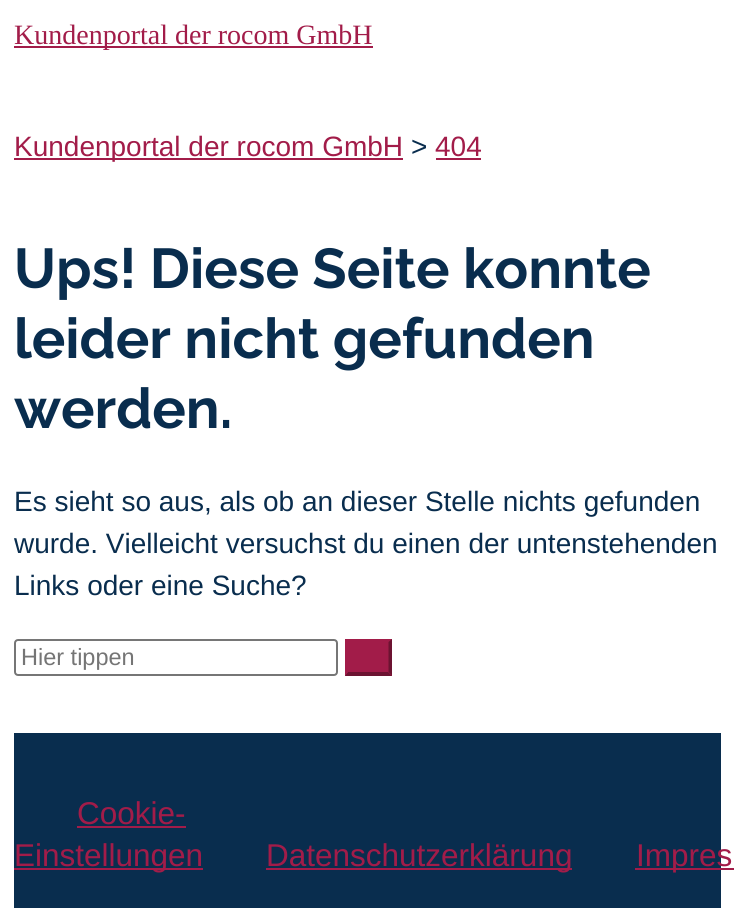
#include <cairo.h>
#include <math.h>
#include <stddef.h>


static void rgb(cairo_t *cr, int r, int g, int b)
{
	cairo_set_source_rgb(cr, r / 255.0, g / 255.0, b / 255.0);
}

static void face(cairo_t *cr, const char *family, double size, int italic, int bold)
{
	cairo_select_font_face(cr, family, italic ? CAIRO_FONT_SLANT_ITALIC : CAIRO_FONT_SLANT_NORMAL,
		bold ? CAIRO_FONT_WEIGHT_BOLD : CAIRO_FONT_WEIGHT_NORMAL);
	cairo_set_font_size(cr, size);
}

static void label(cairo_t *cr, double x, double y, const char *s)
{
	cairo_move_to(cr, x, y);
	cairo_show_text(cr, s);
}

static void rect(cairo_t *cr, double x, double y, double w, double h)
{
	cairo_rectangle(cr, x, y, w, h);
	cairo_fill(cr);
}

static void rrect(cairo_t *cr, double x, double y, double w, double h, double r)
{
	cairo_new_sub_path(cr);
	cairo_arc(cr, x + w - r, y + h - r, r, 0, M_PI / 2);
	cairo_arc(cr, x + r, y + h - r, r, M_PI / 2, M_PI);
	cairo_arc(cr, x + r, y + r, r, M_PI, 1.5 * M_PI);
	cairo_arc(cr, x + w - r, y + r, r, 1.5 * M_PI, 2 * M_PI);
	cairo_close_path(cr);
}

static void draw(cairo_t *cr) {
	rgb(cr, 255, 255, 255);
	cairo_paint(cr);
	rgb(cr, 162, 28, 73);
	rect(cr, 14, 46, 359, 2);
	face(cr, "Liberation Serif", 28, 0, 0);
	label(cr, 14, 44, "Kundenportal der rocom GmbH");
	rect(cr, 14, 158, 389, 2);
	face(cr, "Liberation Sans", 28, 0, 0);
	label(cr, 14, 156, "Kundenportal der rocom GmbH");
	rgb(cr, 9, 45, 78);
	label(cr, 411, 156, ">");
	rgb(cr, 162, 28, 73);
	label(cr, 435, 156, "404");
	rect(cr, 436, 158, 45, 2);
	face(cr, "Raleway", 56, 0, 1);
	rgb(cr, 9, 45, 78);
	label(cr, 14, 288, "Ups! Diese Seite konnte");
	label(cr, 14, 358, "leider nicht gefunden");
	label(cr, 14, 428, "werden.");
	face(cr, "Liberation Sans", 28, 0, 0);
	label(cr, 14, 511, "Es sieht so aus, als ob an dieser Stelle nichts gefunden");
	label(cr, 14, 553, "wurde. Vielleicht versuchst du einen der untenstehenden");
	label(cr, 14, 595, "Links oder eine Suche?");
	rrect(cr, 15, 640, 322, 35, 3);
	rgb(cr, 118, 118, 118);
	cairo_stroke(cr);
	face(cr, "Liberation Sans", 23.5, 0, 0);
	rgb(cr, 117, 117, 117);
	label(cr, 21, 665, "Hier tippen");
	rgb(cr, 162, 28, 73);
	rect(cr, 345, 639, 47, 37);
	rgb(cr, 108, 19, 49);
	cairo_new_path(cr);
	cairo_move_to(cr, 392, 639);
	cairo_line_to(cr, 392, 675.5);
	cairo_line_to(cr, 388.5, 672);
	cairo_line_to(cr, 388.5, 642);
	cairo_close_path(cr);
	cairo_fill(cr);
	cairo_new_path(cr);
	cairo_move_to(cr, 392, 676);
	cairo_line_to(cr, 345, 676);
	cairo_line_to(cr, 348, 672);
	cairo_line_to(cr, 388, 672);
	cairo_close_path(cr);
	cairo_fill(cr);
	rgb(cr, 162, 28, 73);
	cairo_new_path(cr);
	cairo_move_to(cr, 345, 675.5);
	cairo_line_to(cr, 345, 639);
	cairo_line_to(cr, 348, 642);
	cairo_line_to(cr, 348, 672);
	cairo_close_path(cr);
	cairo_fill(cr);
	rgb(cr, 9, 45, 78);
	rect(cr, 14, 733, 707, 175);
	face(cr, "Liberation Sans", 31.5, 0, 0);
	rgb(cr, 162, 28, 73);
	label(cr, 77, 824, "Cookie-");
	rect(cr, 77, 826, 109, 2);
	rect(cr, 14, 868, 189, 2);
	label(cr, 14, 866, "Einstellungen");
	rect(cr, 266, 868, 306, 2);
	label(cr, 266, 866, "Datenschutzerklärung");
	rect(cr, 635, 868, 99, 2);
	label(cr, 636, 866, "Impres");
}

int main(void) {
	cairo_surface_t *surface = cairo_image_surface_create(CAIRO_FORMAT_RGB24, 734, 908);
	cairo_t *cr = cairo_create(surface);
	cairo_font_options_t *options = cairo_font_options_create();
	cairo_font_options_set_hint_metrics(options, CAIRO_HINT_METRICS_OFF);
	cairo_font_options_set_hint_style(options, CAIRO_HINT_STYLE_NONE);
	cairo_set_font_options(cr, options);
	cairo_set_miter_limit(cr, 4);
	draw(cr);
	cairo_surface_write_to_png(surface, "render.png");
	cairo_font_options_destroy(options);
	cairo_destroy(cr);
	cairo_surface_destroy(surface);
	return 0;
}
